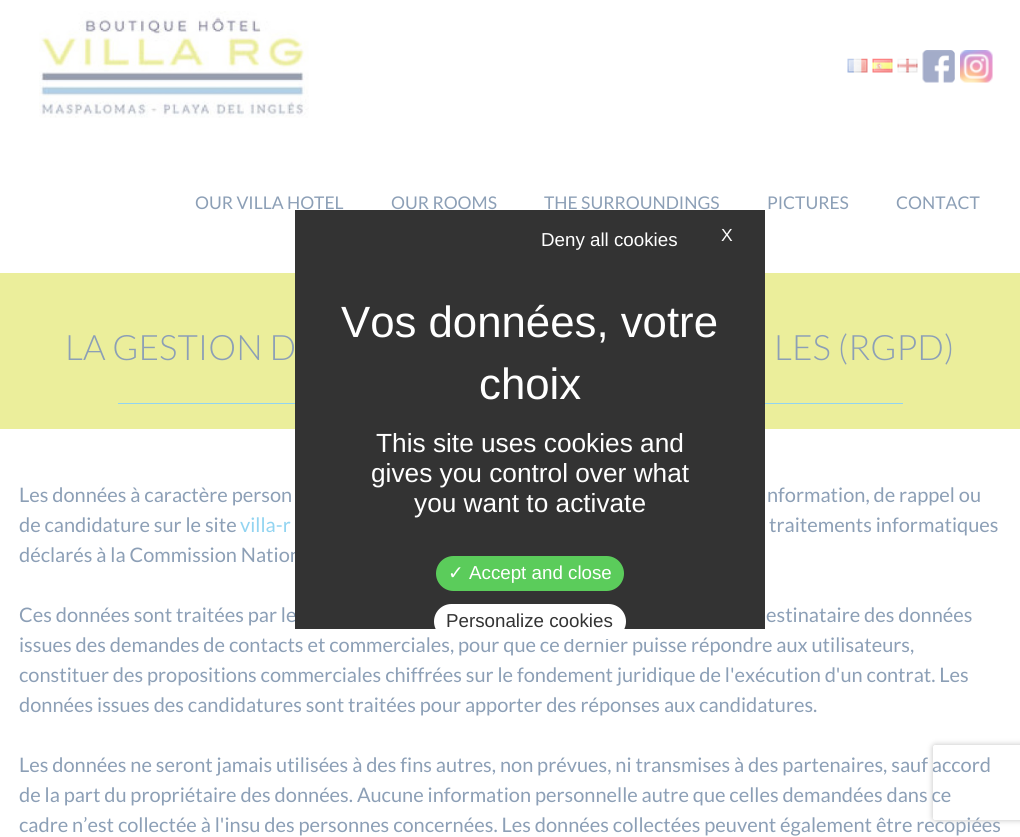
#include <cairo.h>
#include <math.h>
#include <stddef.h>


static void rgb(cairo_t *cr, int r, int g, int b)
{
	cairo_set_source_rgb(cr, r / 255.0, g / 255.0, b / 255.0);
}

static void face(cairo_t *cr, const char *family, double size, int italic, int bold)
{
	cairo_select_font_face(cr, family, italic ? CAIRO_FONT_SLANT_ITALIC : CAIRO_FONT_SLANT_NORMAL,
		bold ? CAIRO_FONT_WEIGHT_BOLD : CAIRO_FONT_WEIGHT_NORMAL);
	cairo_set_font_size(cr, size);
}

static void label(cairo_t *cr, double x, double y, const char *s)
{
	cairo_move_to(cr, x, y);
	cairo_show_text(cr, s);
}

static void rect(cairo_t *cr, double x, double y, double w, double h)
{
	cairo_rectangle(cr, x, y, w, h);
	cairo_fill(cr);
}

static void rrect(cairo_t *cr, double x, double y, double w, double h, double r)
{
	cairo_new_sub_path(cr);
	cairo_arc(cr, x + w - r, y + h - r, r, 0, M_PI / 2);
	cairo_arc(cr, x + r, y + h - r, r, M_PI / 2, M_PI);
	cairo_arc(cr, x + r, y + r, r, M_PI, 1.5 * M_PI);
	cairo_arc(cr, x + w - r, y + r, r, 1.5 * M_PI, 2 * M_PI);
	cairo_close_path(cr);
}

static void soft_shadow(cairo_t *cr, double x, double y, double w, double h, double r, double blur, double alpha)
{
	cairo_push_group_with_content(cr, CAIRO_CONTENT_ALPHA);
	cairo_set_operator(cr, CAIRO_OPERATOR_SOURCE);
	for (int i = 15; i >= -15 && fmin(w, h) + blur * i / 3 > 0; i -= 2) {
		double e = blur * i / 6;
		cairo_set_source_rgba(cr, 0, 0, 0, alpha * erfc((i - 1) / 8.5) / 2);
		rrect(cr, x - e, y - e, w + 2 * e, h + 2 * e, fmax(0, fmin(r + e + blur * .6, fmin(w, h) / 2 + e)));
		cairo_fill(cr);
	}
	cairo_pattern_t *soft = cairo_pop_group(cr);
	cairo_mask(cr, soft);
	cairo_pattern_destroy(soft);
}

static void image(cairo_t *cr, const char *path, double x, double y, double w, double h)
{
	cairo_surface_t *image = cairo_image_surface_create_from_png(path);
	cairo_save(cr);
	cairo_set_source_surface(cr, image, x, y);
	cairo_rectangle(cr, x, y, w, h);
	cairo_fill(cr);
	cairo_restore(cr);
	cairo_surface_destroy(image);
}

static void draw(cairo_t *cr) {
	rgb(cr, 255, 255, 255);
	cairo_paint(cr);
	image(cr, "image0.png", 39, 11, 270, 107);
	image(cr, "image1.png", 847, 58, 21, 15);
	image(cr, "image2.png", 872, 58, 21, 15);
	image(cr, "image3.png", 897, 58, 21, 15);
	image(cr, "image4.png", 922, 50, 33, 33);
	image(cr, "image5.png", 960, 50, 33, 33);
	face(cr, "Lato", 17.5, 0, 0);
	rgb(cr, 140, 159, 182);
	label(cr, 195, 209, "OUR VILLA HOTEL");
	label(cr, 391, 209, "OUR ROOMS");
	label(cr, 544, 209, "THE SURROUNDINGS");
	label(cr, 767, 209, "PICTURES");
	label(cr, 896, 209, "CONTACT");
	rgb(cr, 235, 238, 155);
	rect(cr, 0, 273, 1020, 156);
	face(cr, "Lato Light", 35, 0, 0);
	rgb(cr, 140, 159, 182);
	label(cr, 65, 360, "LA GESTION D");
	label(cr, 774, 360, "LES (RGPD)");
	rgb(cr, 146, 212, 241);
	rect(cr, 118, 403, 785, 1);
	face(cr, "Lato", 20, 0, 0);
	rgb(cr, 140, 159, 182);
	label(cr, 19, 502, "Les données à caractère person");
	label(cr, 767, 502, "nformation, de rappel ou");
	label(cr, 19, 532, "de candidature sur le site");
	rgb(cr, 146, 212, 241);
	label(cr, 240, 532, "villa-r");
	rgb(cr, 140, 159, 182);
	label(cr, 769, 532, "traitements informatiques");
	label(cr, 19, 562, "déclarés à la Commission Nation");
	label(cr, 19, 622, "Ces données sont traitées par le");
	label(cr, 766, 622, "estinataire des données");
	label(cr, 19, 652, "issues des demandes de contacts et commerciales, pour que ce dernier puisse répondre aux utilisateurs,");
	label(cr, 19, 682, "constituer des propositions commerciales chiffrées sur le fondement juridique de l'exécution d'un contrat. Les");
	label(cr, 19, 712, "données issues des candidatures sont traitées pour apporter des réponses aux candidatures.");
	label(cr, 19, 772, "Les données ne seront jamais utilisées à des fins autres, non prévues, ni transmises à des partenaires, sauf accord");
	label(cr, 19, 802, "de la part du propriétaire des données. Aucune information personnelle autre que celles demandées dans ce");
	label(cr, 19, 832, "cadre n’est collectée à l'insu des personnes concernées. Les données collectées peuvent également être recopiées");
	rgb(cr, 51, 51, 51);
	rect(cr, 295, 210, 470, 419);
	face(cr, "Liberation Sans", 18.75, 0, 0);
	rgb(cr, 255, 255, 255);
	label(cr, 541, 246, "Deny all cookies");
	face(cr, "Liberation Sans", 17.5, 0, 0);
	label(cr, 721, 241, "X");
	face(cr, "Liberation Sans", 43.75, 0, 0);
	label(cr, 341, 337, "Vos données, votre");
	label(cr, 479, 399, "choix");
	face(cr, "Liberation Sans", 26.25, 0, 0);
	label(cr, 376, 452, "This site uses cookies and");
	label(cr, 371, 482, "gives you control over what");
	label(cr, 414, 512, "you want to activate");
	rgb(cr, 91, 204, 91);
	rrect(cr, 436, 556, 188, 35, 17.5);
	cairo_fill(cr);
	face(cr, "DejaVu Sans", 18.75, 0, 0);
	rgb(cr, 255, 255, 255);
	label(cr, 448, 579, "✓");
	face(cr, "Liberation Sans", 18.75, 0, 0);
	label(cr, 469, 579, "Accept and close");
	rrect(cr, 434, 604, 192, 35, 17.5);
	cairo_fill(cr);
	rgb(cr, 51, 51, 51);
	label(cr, 446, 627, "Personalize cookies");
	cairo_save(cr);
	cairo_set_fill_rule(cr, CAIRO_FILL_RULE_EVEN_ODD);
	cairo_new_path(cr);
	cairo_move_to(cr, 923, 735);
	cairo_line_to(cr, 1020, 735);
	cairo_line_to(cr, 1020, 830);
	cairo_line_to(cr, 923, 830);
	cairo_close_path(cr);
	cairo_move_to(cr, 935.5, 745);
	cairo_line_to(cr, 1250.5, 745);
	cairo_curve_to(cr, 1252, 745, 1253, 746, 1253, 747.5);
	cairo_line_to(cr, 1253, 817.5);
	cairo_curve_to(cr, 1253, 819, 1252, 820, 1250.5, 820);
	cairo_line_to(cr, 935.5, 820);
	cairo_curve_to(cr, 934, 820, 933, 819, 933, 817.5);
	cairo_line_to(cr, 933, 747.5);
	cairo_curve_to(cr, 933, 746, 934, 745, 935.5, 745);
	cairo_close_path(cr);
	cairo_clip(cr);
	rgb(cr, 192, 192, 192);
	soft_shadow(cr, 933, 745, 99, 75, 2.5, 3, 1);
	cairo_restore(cr);
}

int main(void) {
	cairo_surface_t *surface = cairo_image_surface_create(CAIRO_FORMAT_RGB24, 1020, 837);
	cairo_t *cr = cairo_create(surface);
	cairo_font_options_t *options = cairo_font_options_create();
	cairo_font_options_set_hint_metrics(options, CAIRO_HINT_METRICS_OFF);
	cairo_font_options_set_hint_style(options, CAIRO_HINT_STYLE_NONE);
	cairo_set_font_options(cr, options);
	cairo_set_miter_limit(cr, 4);
	draw(cr);
	cairo_surface_write_to_png(surface, "render.png");
	cairo_font_options_destroy(options);
	cairo_destroy(cr);
	cairo_surface_destroy(surface);
	return 0;
}
